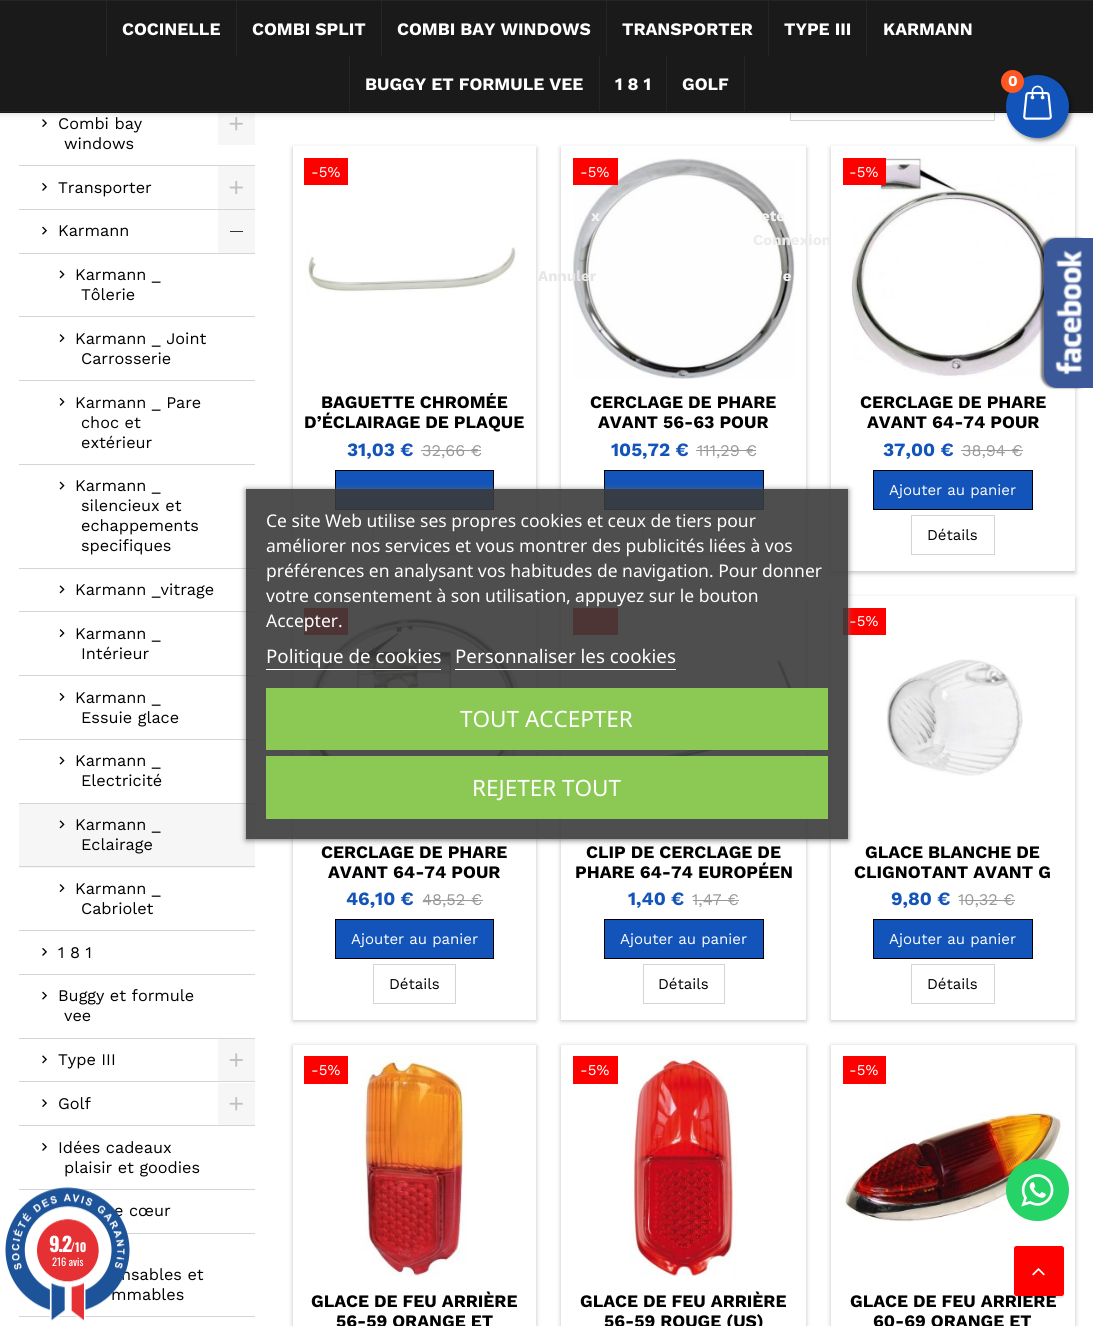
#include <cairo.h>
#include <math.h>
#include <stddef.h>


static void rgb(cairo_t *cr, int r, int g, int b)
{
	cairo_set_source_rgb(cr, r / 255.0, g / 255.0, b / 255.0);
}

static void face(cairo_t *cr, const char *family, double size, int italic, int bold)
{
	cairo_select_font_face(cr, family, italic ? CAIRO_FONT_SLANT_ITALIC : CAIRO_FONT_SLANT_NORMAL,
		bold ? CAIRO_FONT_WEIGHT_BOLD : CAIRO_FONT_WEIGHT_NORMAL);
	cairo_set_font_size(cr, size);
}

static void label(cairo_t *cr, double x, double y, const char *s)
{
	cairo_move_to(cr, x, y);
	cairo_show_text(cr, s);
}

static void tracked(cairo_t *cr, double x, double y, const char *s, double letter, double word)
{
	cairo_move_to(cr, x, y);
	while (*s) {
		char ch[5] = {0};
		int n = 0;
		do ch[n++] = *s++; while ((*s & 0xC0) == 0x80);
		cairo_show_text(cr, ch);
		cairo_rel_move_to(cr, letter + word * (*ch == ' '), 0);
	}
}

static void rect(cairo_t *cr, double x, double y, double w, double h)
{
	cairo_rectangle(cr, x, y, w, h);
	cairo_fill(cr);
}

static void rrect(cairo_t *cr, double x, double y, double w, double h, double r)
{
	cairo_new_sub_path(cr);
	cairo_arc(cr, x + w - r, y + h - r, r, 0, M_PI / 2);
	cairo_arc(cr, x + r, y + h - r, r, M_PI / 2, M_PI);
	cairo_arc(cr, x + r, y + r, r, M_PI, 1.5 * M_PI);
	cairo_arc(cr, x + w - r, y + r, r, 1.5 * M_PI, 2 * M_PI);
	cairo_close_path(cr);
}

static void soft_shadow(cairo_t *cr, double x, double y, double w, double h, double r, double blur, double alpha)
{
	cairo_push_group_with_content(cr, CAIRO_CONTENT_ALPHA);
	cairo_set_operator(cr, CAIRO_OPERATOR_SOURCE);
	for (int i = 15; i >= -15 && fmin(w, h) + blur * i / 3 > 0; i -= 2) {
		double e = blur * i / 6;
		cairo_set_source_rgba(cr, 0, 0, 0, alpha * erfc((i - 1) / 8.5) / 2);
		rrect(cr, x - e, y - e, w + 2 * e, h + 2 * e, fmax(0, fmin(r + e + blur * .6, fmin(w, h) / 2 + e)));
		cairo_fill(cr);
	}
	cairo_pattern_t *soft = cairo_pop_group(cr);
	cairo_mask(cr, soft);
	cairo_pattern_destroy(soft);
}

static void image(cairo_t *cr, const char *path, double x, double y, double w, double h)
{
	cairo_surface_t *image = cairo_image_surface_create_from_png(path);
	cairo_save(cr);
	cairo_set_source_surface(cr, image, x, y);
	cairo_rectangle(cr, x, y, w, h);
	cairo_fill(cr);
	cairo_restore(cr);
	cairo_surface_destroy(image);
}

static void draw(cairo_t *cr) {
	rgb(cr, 255, 255, 255);
	cairo_paint(cr);
	image(cr, "image1.png", 42, 119, 5, 8);
	rgb(cr, 246, 246, 246);
	rect(cr, 218, 113, 37, 32);
	image(cr, "image2.png", 229, 117, 14, 14);
	cairo_rectangle(cr, 790.5, 86.5, 204, 34);
	rgb(cr, 214, 212, 212);
	cairo_set_line_width(cr, 1);
	cairo_stroke(cr);
	rgb(cr, 0, 0, 0);
	soft_shadow(cr, 0, 3, 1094, 112, 0, 2.5, 0.1);
	rgb(cr, 27, 26, 27);
	rect(cr, 0, 1, 1093, 112);
	rgb(cr, 40, 35, 41);
	rect(cr, 0, 0, 1093, 1);
	rect(cr, 0, 111, 1093, 1);
	rect(cr, 106, 1, 1, 55);
	face(cr, "Work Sans", 17.5, 0, 1);
	rgb(cr, 255, 255, 255);
	label(cr, 122, 35, "COCINELLE");
	rgb(cr, 40, 35, 41);
	rect(cr, 236, 1, 1, 55);
	rgb(cr, 255, 255, 255);
	label(cr, 252, 35, "COMBI SPLIT");
	rgb(cr, 40, 35, 41);
	rect(cr, 381, 1, 1, 55);
	rgb(cr, 255, 255, 255);
	label(cr, 397, 35, "COMBI BAY WINDOWS");
	rgb(cr, 40, 35, 41);
	rect(cr, 606, 1, 1, 55);
	rgb(cr, 255, 255, 255);
	label(cr, 622, 35, "TRANSPORTER");
	rgb(cr, 40, 35, 41);
	rect(cr, 768, 1, 1, 55);
	rgb(cr, 255, 255, 255);
	label(cr, 784, 35, "TYPE III");
	rgb(cr, 40, 35, 41);
	rect(cr, 866, 1, 1, 55);
	rgb(cr, 255, 255, 255);
	label(cr, 883, 35, "KARMANN");
	rgb(cr, 40, 35, 41);
	rect(cr, 349, 56, 1, 55);
	rgb(cr, 255, 255, 255);
	label(cr, 365, 90, "BUGGY ET FORMULE VEE");
	rgb(cr, 40, 35, 41);
	rect(cr, 599, 56, 1, 55);
	rgb(cr, 255, 255, 255);
	label(cr, 615, 90, "1 8 1");
	rgb(cr, 40, 35, 41);
	rect(cr, 744, 56, 1, 55);
	rect(cr, 666, 56, 1, 55);
	rgb(cr, 255, 255, 255);
	label(cr, 682, 90, "GOLF");
	rgb(cr, 0, 0, 0);
	soft_shadow(cr, 831, 148, 244, 425, 0, 2.5, 0.24);
	rgb(cr, 255, 255, 255);
	rect(cr, 831, 146, 244, 425);
	rgb(cr, 0, 0, 0);
	soft_shadow(cr, 1009, 78, 62, 62, 31, 2.5, 0.5);
	rgb(cr, 18, 84, 185);
	cairo_arc(cr, 1037.5, 106.5, 31.5, 0, 2 * M_PI);
	cairo_fill(cr);
	image(cr, "image0.png", 1023, 85, 29, 35);
	rgb(cr, 255, 87, 34);
	cairo_arc(cr, 1012.5, 81.5, 11.5, 0, 2 * M_PI);
	cairo_fill(cr);
	face(cr, "Work Sans", 15, 0, 1);
	rgb(cr, 255, 255, 255);
	label(cr, 1008, 86, "0");
	rgb(cr, 214, 212, 212);
	rect(cr, 19, 165, 236, 1);
	face(cr, "Work Sans", 16.25, 0, 0);
	rgb(cr, 0, 0, 0);
	label(cr, 58, 129, "Combi bay");
	label(cr, 64, 149, "windows");
	rgb(cr, 214, 212, 212);
	rect(cr, 19, 209, 236, 1);
	image(cr, "image3.png", 42, 183, 5, 8);
	rgb(cr, 0, 0, 0);
	label(cr, 58, 193, "Transporter");
	rgb(cr, 246, 246, 246);
	rect(cr, 218, 166, 37, 43);
	image(cr, "image4.png", 229, 181, 14, 13);
	rgb(cr, 214, 212, 212);
	rect(cr, 19, 253, 236, 1);
	image(cr, "image5.png", 42, 226, 5, 9);
	rgb(cr, 0, 0, 0);
	label(cr, 58, 236, "Karmann");
	rgb(cr, 246, 246, 246);
	rect(cr, 218, 210, 37, 43);
	rgb(cr, 51, 51, 51);
	rect(cr, 230, 231, 13, 1);
	rgb(cr, 214, 212, 212);
	rect(cr, 19, 316, 236, 1);
	image(cr, "image6.png", 59, 270, 6, 9);
	rgb(cr, 0, 0, 0);
	label(cr, 75, 280, "Karmann _");
	label(cr, 81, 300, "Tôlerie");
	rgb(cr, 214, 212, 212);
	rect(cr, 19, 380, 236, 1);
	image(cr, "image7.png", 59, 334, 6, 9);
	rgb(cr, 0, 0, 0);
	label(cr, 75, 344, "Karmann _ Joint");
	label(cr, 81, 364, "Carrosserie");
	rgb(cr, 214, 212, 212);
	rect(cr, 19, 464, 236, 1);
	image(cr, "image8.png", 59, 397, 6, 9);
	rgb(cr, 0, 0, 0);
	label(cr, 75, 408, "Karmann _ Pare");
	label(cr, 81, 428, "choc et");
	label(cr, 81, 448, "extérieur");
	rgb(cr, 214, 212, 212);
	rect(cr, 19, 568, 236, 1);
	image(cr, "image9.png", 59, 481, 6, 9);
	rgb(cr, 0, 0, 0);
	label(cr, 75, 491, "Karmann _");
	label(cr, 81, 511, "silencieux et");
	label(cr, 81, 531, "echappements");
	label(cr, 81, 551, "specifiques");
	rgb(cr, 214, 212, 212);
	rect(cr, 19, 611, 236, 1);
	image(cr, "image6.png", 59, 585, 6, 9);
	rgb(cr, 0, 0, 0);
	label(cr, 75, 595, "Karmann _vitrage");
	rgb(cr, 214, 212, 212);
	rect(cr, 19, 675, 236, 1);
	image(cr, "image7.png", 59, 629, 6, 9);
	rgb(cr, 0, 0, 0);
	label(cr, 75, 639, "Karmann _");
	label(cr, 81, 659, "Intérieur");
	rgb(cr, 214, 212, 212);
	rect(cr, 19, 739, 236, 1);
	image(cr, "image8.png", 59, 692, 6, 9);
	rgb(cr, 0, 0, 0);
	label(cr, 75, 703, "Karmann _");
	label(cr, 81, 723, "Essuie glace");
	rgb(cr, 214, 212, 212);
	rect(cr, 19, 803, 236, 1);
	image(cr, "image9.png", 59, 756, 6, 9);
	rgb(cr, 0, 0, 0);
	label(cr, 75, 766, "Karmann _");
	label(cr, 81, 786, "Electricité");
	rgb(cr, 246, 246, 246);
	rect(cr, 19, 804, 236, 64);
	rgb(cr, 214, 212, 212);
	rect(cr, 19, 866, 236, 1);
	image(cr, "image10.png", 59, 820, 6, 9);
	rgb(cr, 0, 0, 0);
	label(cr, 75, 830, "Karmann _");
	label(cr, 81, 850, "Eclairage");
	rgb(cr, 214, 212, 212);
	rect(cr, 19, 930, 236, 1);
	image(cr, "image7.png", 59, 884, 6, 9);
	rgb(cr, 0, 0, 0);
	label(cr, 75, 894, "Karmann _");
	label(cr, 81, 914, "Cabriolet");
	rgb(cr, 214, 212, 212);
	rect(cr, 19, 974, 236, 1);
	image(cr, "image3.png", 42, 948, 5, 8);
	rgb(cr, 0, 0, 0);
	label(cr, 58, 958, "1 8 1");
	rgb(cr, 214, 212, 212);
	rect(cr, 19, 1038, 236, 1);
	image(cr, "image5.png", 42, 991, 5, 9);
	rgb(cr, 0, 0, 0);
	label(cr, 58, 1001, "Buggy et formule");
	label(cr, 64, 1021, "vee");
	rgb(cr, 214, 212, 212);
	rect(cr, 19, 1081, 236, 1);
	image(cr, "image11.png", 42, 1055, 5, 9);
	rgb(cr, 0, 0, 0);
	label(cr, 58, 1065, "Type III");
	rgb(cr, 246, 246, 246);
	rect(cr, 218, 1039, 37, 42);
	image(cr, "image12.png", 229, 1053, 14, 14);
	rgb(cr, 214, 212, 212);
	rect(cr, 19, 1125, 236, 1);
	image(cr, "image1.png", 42, 1099, 5, 8);
	rgb(cr, 0, 0, 0);
	label(cr, 58, 1109, "Golf");
	rgb(cr, 246, 246, 246);
	rect(cr, 218, 1083, 37, 42);
	image(cr, "image2.png", 229, 1097, 14, 14);
	rgb(cr, 214, 212, 212);
	rect(cr, 19, 1189, 236, 1);
	image(cr, "image3.png", 42, 1143, 5, 8);
	rgb(cr, 0, 0, 0);
	label(cr, 58, 1153, "Idées cadeaux");
	label(cr, 64, 1173, "plaisir et goodies");
	rgb(cr, 214, 212, 212);
	rect(cr, 127, 1233, 128, 1);
	rgb(cr, 0, 0, 0);
	label(cr, 114, 1216, "e cœur");
	rgb(cr, 214, 212, 212);
	rect(cr, 19, 1316, 236, 1);
	rgb(cr, 0, 0, 0);
	label(cr, 121, 1280, "nsables et");
	label(cr, 111, 1300, "mmables");
	rgb(cr, 0, 0, 0);
	soft_shadow(cr, 293, 148, 243, 425, 0, 2.5, 0.24);
	rgb(cr, 255, 255, 255);
	rect(cr, 293, 146, 243, 425);
	rgb(cr, 255, 0, 0);
	rect(cr, 304, 158, 44, 27);
	face(cr, "Work Sans", 15, 0, 0);
	rgb(cr, 255, 255, 255);
	label(cr, 311, 177, "-5%");
	image(cr, "image13.png", 304, 247, 213, 46);
	cairo_save(cr);
	cairo_rectangle(cr, 304, 393, 221, 40);
	cairo_clip(cr);
	face(cr, "Work Sans", 17.5, 0, 1);
	rgb(cr, 0, 0, 0);
	label(cr, 321, 408, "BAGUETTE CHROMÉE");
	cairo_restore(cr);
	face(cr, "Work Sans", 17.5, 0, 1);
	rgb(cr, 0, 0, 0);
	label(cr, 304, 428, "D’ÉCLAIRAGE DE PLAQUE");
	face(cr, "Work Sans", 18.75, 0, 1);
	rgb(cr, 18, 84, 185);
	label(cr, 347, 456, "31,03 €");
	face(cr, "Work Sans", 16.25, 0, 0);
	rgb(cr, 153, 153, 153);
	label(cr, 422, 456, "32,66 €");
	rect(cr, 421, 450, 60, 1);
	rgb(cr, 18, 84, 185);
	cairo_rectangle(cr, 335.5, 470.5, 158, 39);
	cairo_fill_preserve(cr);
	rgb(cr, 0, 0, 0);
	cairo_stroke(cr);
	cairo_rectangle(cr, 373.5, 515.5, 82, 39);
	rgb(cr, 214, 212, 212);
	cairo_stroke(cr);
	rgb(cr, 0, 0, 0);
	soft_shadow(cr, 561, 148, 245, 425, 0, 2.5, 0.24);
	rgb(cr, 255, 255, 255);
	rect(cr, 561, 146, 245, 425);
	image(cr, "image14.png", 572, 158, 223, 221);
	rgb(cr, 255, 0, 0);
	rect(cr, 573, 158, 45, 27);
	face(cr, "Work Sans", 15, 0, 0);
	rgb(cr, 255, 255, 255);
	label(cr, 580, 177, "-5%");
	face(cr, "Work Sans", 17.5, 0, 1);
	rgb(cr, 0, 0, 0);
	label(cr, 590, 408, "CERCLAGE DE PHARE");
	label(cr, 598, 428, "AVANT 56-63 POUR");
	face(cr, "Work Sans", 18.75, 0, 1);
	rgb(cr, 18, 84, 185);
	label(cr, 611, 456, "105,72 €");
	face(cr, "Work Sans", 16.25, 0, 0);
	rgb(cr, 153, 153, 153);
	label(cr, 697, 456, "111,29 €");
	rect(cr, 696, 450, 60, 1);
	rgb(cr, 18, 84, 185);
	cairo_rectangle(cr, 604.5, 470.5, 159, 39);
	cairo_fill_preserve(cr);
	rgb(cr, 0, 0, 0);
	cairo_stroke(cr);
	cairo_rectangle(cr, 643.5, 515.5, 81, 39);
	rgb(cr, 214, 212, 212);
	cairo_stroke(cr);
	image(cr, "image15.png", 851, 157, 204, 220);
	rgb(cr, 255, 0, 0);
	rect(cr, 843, 158, 43, 27);
	face(cr, "Work Sans", 15, 0, 0);
	rgb(cr, 255, 255, 255);
	label(cr, 849, 177, "-5%");
	face(cr, "Work Sans", 17.5, 0, 1);
	rgb(cr, 0, 0, 0);
	label(cr, 860, 408, "CERCLAGE DE PHARE");
	label(cr, 867, 428, "AVANT 64-74 POUR");
	face(cr, "Work Sans", 18.75, 0, 1);
	rgb(cr, 18, 84, 185);
	label(cr, 883, 456, "37,00 €");
	face(cr, "Work Sans", 16.25, 0, 0);
	rgb(cr, 153, 153, 153);
	label(cr, 962, 456, "38,94 €");
	rect(cr, 961, 450, 62, 1);
	rgb(cr, 18, 84, 185);
	cairo_rectangle(cr, 873.5, 470.5, 159, 39);
	cairo_fill_preserve(cr);
	rgb(cr, 0, 0, 0);
	cairo_stroke(cr);
	face(cr, "Work Sans", 15, 0, 0);
	rgb(cr, 255, 255, 255);
	label(cr, 889, 495, "Ajouter au panier");
	cairo_rectangle(cr, 911.5, 515.5, 83, 39);
	rgb(cr, 214, 212, 212);
	cairo_stroke(cr);
	rgb(cr, 0, 0, 0);
	label(cr, 927, 540, "Détails");
	rgb(cr, 0, 0, 0);
	soft_shadow(cr, 293, 598, 243, 423, 0, 2.5, 0.24);
	rgb(cr, 255, 255, 255);
	rect(cr, 293, 596, 243, 424);
	image(cr, "image16.png", 303, 617, 221, 139);
	rgb(cr, 255, 0, 0);
	rect(cr, 304, 608, 44, 27);
	face(cr, "Work Sans", 17.5, 0, 1);
	rgb(cr, 0, 0, 0);
	label(cr, 321, 858, "CERCLAGE DE PHARE");
	label(cr, 328, 878, "AVANT 64-74 POUR");
	face(cr, "Work Sans", 18.75, 0, 1);
	rgb(cr, 18, 84, 185);
	label(cr, 346, 905, "46,10 €");
	face(cr, "Work Sans", 16.25, 0, 0);
	rgb(cr, 153, 153, 153);
	label(cr, 422, 905, "48,52 €");
	rect(cr, 423, 900, 60, 1);
	rgb(cr, 18, 84, 185);
	cairo_rectangle(cr, 335.5, 919.5, 158, 39);
	cairo_fill_preserve(cr);
	rgb(cr, 0, 0, 0);
	cairo_stroke(cr);
	face(cr, "Work Sans", 15, 0, 0);
	rgb(cr, 255, 255, 255);
	label(cr, 351, 944, "Ajouter au panier");
	cairo_rectangle(cr, 373.5, 964.5, 82, 39);
	rgb(cr, 214, 212, 212);
	cairo_stroke(cr);
	rgb(cr, 0, 0, 0);
	label(cr, 389, 989, "Détails");
	rgb(cr, 0, 0, 0);
	soft_shadow(cr, 561, 598, 245, 423, 0, 2.5, 0.24);
	rgb(cr, 255, 255, 255);
	rect(cr, 561, 596, 245, 424);
	rgb(cr, 255, 0, 0);
	rect(cr, 573, 608, 45, 27);
	image(cr, "image17.png", 572, 656, 223, 100);
	face(cr, "Work Sans", 17.5, 0, 1);
	rgb(cr, 0, 0, 0);
	label(cr, 586, 858, "CLIP DE CERCLAGE DE");
	label(cr, 575, 878, "PHARE 64-74 EUROPÉEN");
	face(cr, "Work Sans", 18.75, 0, 1);
	rgb(cr, 18, 84, 185);
	label(cr, 628, 905, "1,40 €");
	face(cr, "Work Sans", 16.25, 0, 0);
	rgb(cr, 153, 153, 153);
	label(cr, 692, 905, "1,47 €");
	rect(cr, 693, 900, 46, 1);
	rgb(cr, 18, 84, 185);
	cairo_rectangle(cr, 604.5, 919.5, 159, 39);
	cairo_fill_preserve(cr);
	rgb(cr, 0, 0, 0);
	cairo_stroke(cr);
	face(cr, "Work Sans", 15, 0, 0);
	rgb(cr, 255, 255, 255);
	label(cr, 620, 944, "Ajouter au panier");
	cairo_rectangle(cr, 643.5, 964.5, 81, 39);
	rgb(cr, 214, 212, 212);
	cairo_stroke(cr);
	rgb(cr, 0, 0, 0);
	label(cr, 658, 989, "Détails");
	rgb(cr, 0, 0, 0);
	soft_shadow(cr, 831, 598, 244, 423, 0, 2.5, 0.24);
	rgb(cr, 255, 255, 255);
	rect(cr, 831, 596, 244, 424);
	rgb(cr, 255, 0, 0);
	rect(cr, 843, 608, 43, 27);
	rgb(cr, 255, 255, 255);
	label(cr, 849, 626, "-5%");
	image(cr, "image18.png", 886, 659, 137, 117);
	face(cr, "Work Sans", 17.5, 0, 1);
	rgb(cr, 0, 0, 0);
	label(cr, 865, 858, "GLACE BLANCHE DE");
	label(cr, 854, 878, "CLIGNOTANT AVANT G");
	face(cr, "Work Sans", 18.75, 0, 1);
	rgb(cr, 18, 84, 185);
	label(cr, 891, 905, "9,80 €");
	face(cr, "Work Sans", 16.25, 0, 0);
	rgb(cr, 153, 153, 153);
	label(cr, 958, 905, "10,32 €");
	rect(cr, 959, 900, 56, 1);
	rgb(cr, 18, 84, 185);
	cairo_rectangle(cr, 873.5, 919.5, 159, 39);
	cairo_fill_preserve(cr);
	rgb(cr, 0, 0, 0);
	cairo_stroke(cr);
	face(cr, "Work Sans", 15, 0, 0);
	rgb(cr, 255, 255, 255);
	label(cr, 889, 944, "Ajouter au panier");
	cairo_rectangle(cr, 911.5, 964.5, 83, 39);
	rgb(cr, 214, 212, 212);
	cairo_stroke(cr);
	rgb(cr, 0, 0, 0);
	label(cr, 927, 989, "Détails");
	cairo_save(cr);
	cairo_set_fill_rule(cr, CAIRO_FILL_RULE_EVEN_ODD);
	cairo_new_path(cr);
	cairo_move_to(cr, 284, 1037);
	cairo_line_to(cr, 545, 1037);
	cairo_line_to(cr, 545, 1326);
	cairo_line_to(cr, 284, 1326);
	cairo_close_path(cr);
	cairo_move_to(cr, 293, 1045);
	cairo_line_to(cr, 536, 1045);
	cairo_line_to(cr, 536, 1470);
	cairo_line_to(cr, 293, 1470);
	cairo_close_path(cr);
	cairo_clip(cr);
	rgb(cr, 0, 0, 0);
	soft_shadow(cr, 293, 1046, 243, 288, 0, 2.5, 0.24);
	cairo_restore(cr);
	rgb(cr, 255, 0, 0);
	rect(cr, 304, 1056, 44, 28);
	rgb(cr, 255, 255, 255);
	label(cr, 311, 1075, "-5%");
	image(cr, "image19.png", 360, 1056, 108, 221);
	face(cr, "Work Sans", 17.5, 0, 1);
	rgb(cr, 0, 0, 0);
	label(cr, 311, 1307, "GLACE DE FEU ARRIÈRE");
	label(cr, 336, 1327, "56-59 ORANGE ET");
	rgb(cr, 0, 0, 0);
	soft_shadow(cr, 561, 1046, 245, 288, 0, 2.5, 0.24);
	rgb(cr, 255, 255, 255);
	rect(cr, 561, 1045, 245, 281);
	rgb(cr, 255, 0, 0);
	rect(cr, 573, 1056, 45, 28);
	face(cr, "Work Sans", 15, 0, 0);
	rgb(cr, 255, 255, 255);
	label(cr, 580, 1075, "-5%");
	image(cr, "image20.png", 628, 1056, 109, 221);
	face(cr, "Work Sans", 17.5, 0, 1);
	rgb(cr, 0, 0, 0);
	label(cr, 580, 1307, "GLACE DE FEU ARRIÈRE");
	label(cr, 604, 1327, "56-59 ROUGE (US)");
	rgb(cr, 0, 0, 0);
	soft_shadow(cr, 831, 1046, 244, 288, 0, 2.5, 0.24);
	rgb(cr, 255, 255, 255);
	rect(cr, 831, 1045, 244, 281);
	rgb(cr, 255, 0, 0);
	rect(cr, 843, 1056, 43, 28);
	face(cr, "Work Sans", 15, 0, 0);
	rgb(cr, 255, 255, 255);
	label(cr, 849, 1075, "-5%");
	image(cr, "image21.png", 843, 1111, 219, 111);
	face(cr, "Work Sans", 17.5, 0, 1);
	rgb(cr, 0, 0, 0);
	label(cr, 850, 1307, "GLACE DE FEU ARRIÈRE");
	label(cr, 873, 1327, "60-69 ORANGE ET");
	rgb(cr, 0, 0, 0);
	soft_shadow(cr, 1041, 238, 50, 150, 13, 1, 0.5);
	rgb(cr, 59, 89, 152);
	cairo_new_path(cr);
	cairo_move_to(cr, 1057, 238);
	cairo_line_to(cr, 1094, 238);
	cairo_line_to(cr, 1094, 388);
	cairo_line_to(cr, 1057, 388);
	cairo_curve_to(cr, 1050, 388, 1044, 382, 1044, 375);
	cairo_line_to(cr, 1044, 251);
	cairo_curve_to(cr, 1044, 244, 1050, 238, 1057, 238);
	cairo_close_path(cr);
	cairo_fill(cr);
	image(cr, "image22.png", 1055, 250, 27, 125);
	face(cr, "Work Sans", 15, 0, 1);
	rgb(cr, 244, 244, 245);
	label(cr, 591, 221, "x");
	label(cr, 761, 221, "ete");
	rgb(cr, 236, 236, 235);
	label(cr, 753, 245, "Connexion");
	rgb(cr, 230, 230, 230);
	label(cr, 538, 281, "Annuler");
	rgb(cr, 244, 244, 245);
	label(cr, 779, 281, "'e");
	cairo_save(cr);
	cairo_set_fill_rule(cr, CAIRO_FILL_RULE_EVEN_ODD);
	cairo_new_path(cr);
	cairo_move_to(cr, 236, 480);
	cairo_line_to(cr, 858, 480);
	cairo_line_to(cr, 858, 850);
	cairo_line_to(cr, 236, 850);
	cairo_close_path(cr);
	cairo_move_to(cr, 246, 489);
	cairo_line_to(cr, 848, 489);
	cairo_line_to(cr, 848, 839);
	cairo_line_to(cr, 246, 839);
	cairo_close_path(cr);
	cairo_clip(cr);
	rgb(cr, 112, 112, 112);
	soft_shadow(cr, 246, 490, 602, 350, 0, 3, 1);
	cairo_restore(cr);
	cairo_set_source_rgba(cr, 0.231, 0.231, 0.231, 0.9);
	rect(cr, 246, 489, 602, 350);
	face(cr, "Noto Sans", 17.5, 0, 0);
	rgb(cr, 255, 255, 255);
	label(cr, 266, 527, "Ce site Web utilise ses propres cookies et ceux de tiers pour");
	label(cr, 266, 552, "améliorer nos services et vous montrer des publicités liées à vos");
	label(cr, 266, 577, "préférences en analysant vos habitudes de navigation. Pour donner");
	label(cr, 266, 602, "votre consentement à son utilisation, appuyez sur le bouton");
	label(cr, 266, 627, "Accepter.");
	face(cr, "Noto Sans", 18.75, 0, 0);
	label(cr, 266, 663, "Politique de cookies");
	rect(cr, 266, 669, 175, 1);
	label(cr, 455, 663, "Personnaliser les cookies");
	rect(cr, 455, 669, 221, 1);
	rgb(cr, 139, 201, 84);
	rect(cr, 266, 688, 562, 62);
	face(cr, "Noto Sans", 22.5, 0, 0);
	rgb(cr, 255, 255, 255);
	label(cr, 460, 727, "TOUT ACCEPTER");
	rgb(cr, 139, 201, 84);
	rect(cr, 266, 756, 562, 63);
	rgb(cr, 255, 255, 255);
	label(cr, 472, 796, "REJETER TOUT");
	rgb(cr, 37, 211, 102);
	rrect(cr, 1006, 1159, 63, 62, 31);
	cairo_fill(cr);
	image(cr, "image23.png", 1021, 1174, 33, 33);
	rgb(cr, 0, 0, 0);
	soft_shadow(cr, 1014, 1248, 50, 50, 2.5, 0.5, 0.1);
	rgb(cr, 255, 0, 0);
	rrect(cr, 1014, 1246, 50, 50, 2.5);
	cairo_fill(cr);
	image(cr, "image24.png", 1032, 1268, 13, 8);
	image(cr, "image25.png", 5, 1187, 125, 134);
	face(cr, "Oswald", 20, 0, 1);
	rgb(cr, 255, 255, 255);
	tracked(cr, 49, 1252, "9.2", -1.5, 0);
	face(cr, "Oswald", 12, 0, 1);
	label(cr, 70, 1252, "/10");
	face(cr, "Oswald", 10.5, 0, 0);
	label(cr, 52, 1266, "216 avis");
}

int main(void) {
	cairo_surface_t *surface = cairo_image_surface_create(CAIRO_FORMAT_RGB24, 1093, 1326);
	cairo_t *cr = cairo_create(surface);
	cairo_font_options_t *options = cairo_font_options_create();
	cairo_font_options_set_hint_metrics(options, CAIRO_HINT_METRICS_OFF);
	cairo_font_options_set_hint_style(options, CAIRO_HINT_STYLE_NONE);
	cairo_set_font_options(cr, options);
	cairo_set_miter_limit(cr, 4);
	draw(cr);
	cairo_surface_write_to_png(surface, "render.png");
	cairo_font_options_destroy(options);
	cairo_destroy(cr);
	cairo_surface_destroy(surface);
	return 0;
}
